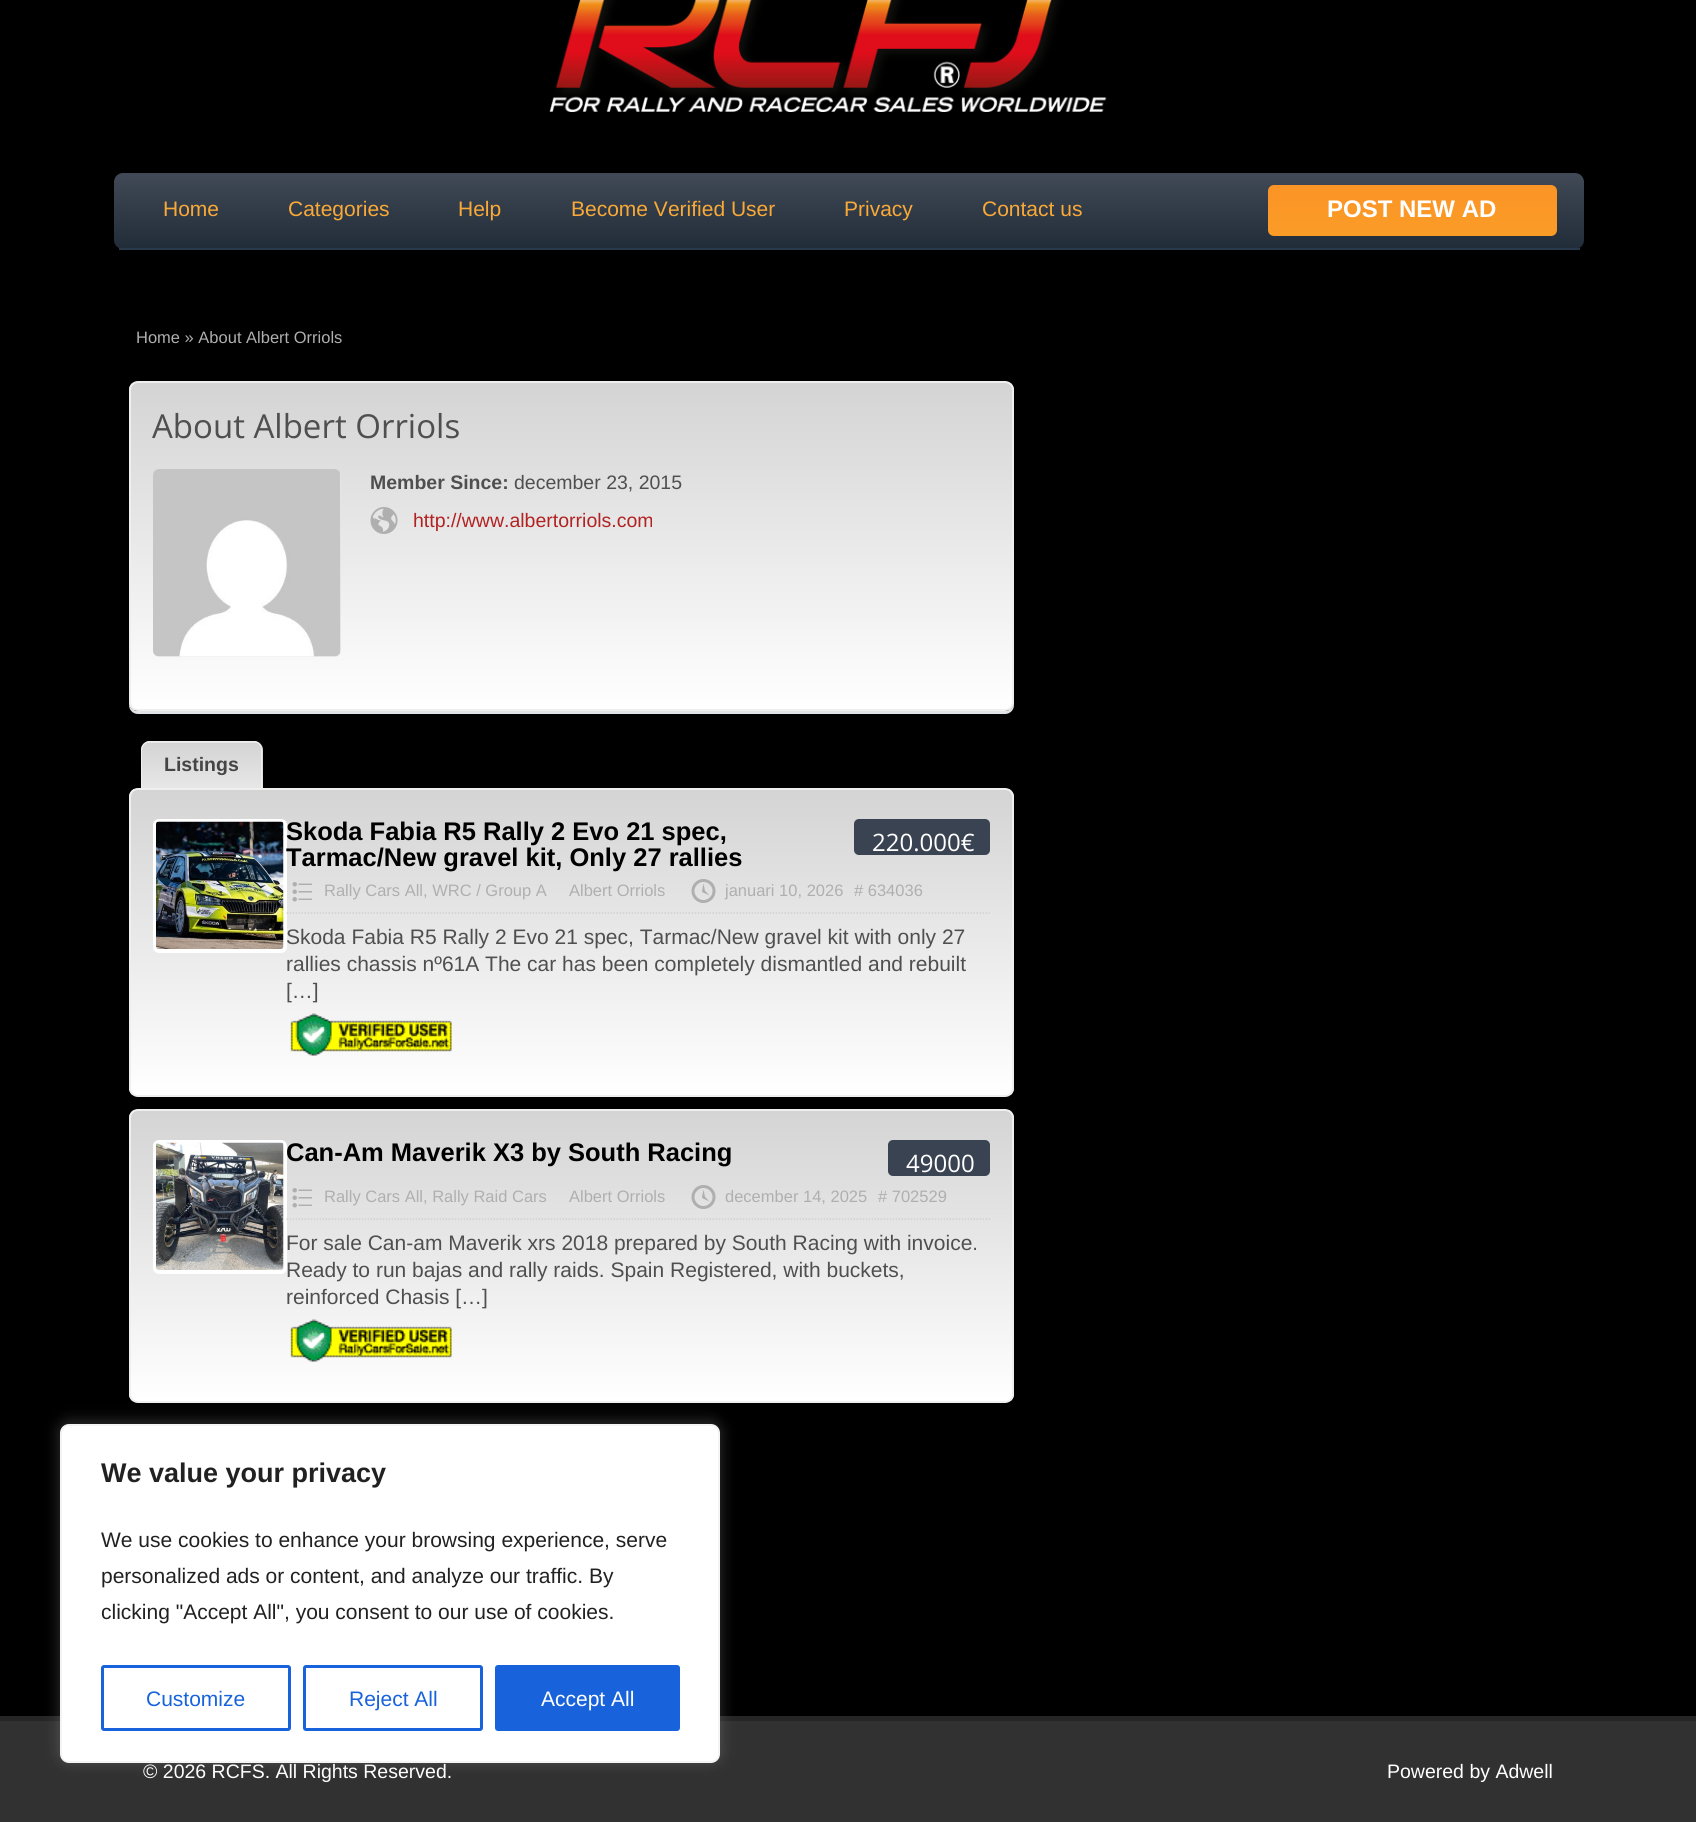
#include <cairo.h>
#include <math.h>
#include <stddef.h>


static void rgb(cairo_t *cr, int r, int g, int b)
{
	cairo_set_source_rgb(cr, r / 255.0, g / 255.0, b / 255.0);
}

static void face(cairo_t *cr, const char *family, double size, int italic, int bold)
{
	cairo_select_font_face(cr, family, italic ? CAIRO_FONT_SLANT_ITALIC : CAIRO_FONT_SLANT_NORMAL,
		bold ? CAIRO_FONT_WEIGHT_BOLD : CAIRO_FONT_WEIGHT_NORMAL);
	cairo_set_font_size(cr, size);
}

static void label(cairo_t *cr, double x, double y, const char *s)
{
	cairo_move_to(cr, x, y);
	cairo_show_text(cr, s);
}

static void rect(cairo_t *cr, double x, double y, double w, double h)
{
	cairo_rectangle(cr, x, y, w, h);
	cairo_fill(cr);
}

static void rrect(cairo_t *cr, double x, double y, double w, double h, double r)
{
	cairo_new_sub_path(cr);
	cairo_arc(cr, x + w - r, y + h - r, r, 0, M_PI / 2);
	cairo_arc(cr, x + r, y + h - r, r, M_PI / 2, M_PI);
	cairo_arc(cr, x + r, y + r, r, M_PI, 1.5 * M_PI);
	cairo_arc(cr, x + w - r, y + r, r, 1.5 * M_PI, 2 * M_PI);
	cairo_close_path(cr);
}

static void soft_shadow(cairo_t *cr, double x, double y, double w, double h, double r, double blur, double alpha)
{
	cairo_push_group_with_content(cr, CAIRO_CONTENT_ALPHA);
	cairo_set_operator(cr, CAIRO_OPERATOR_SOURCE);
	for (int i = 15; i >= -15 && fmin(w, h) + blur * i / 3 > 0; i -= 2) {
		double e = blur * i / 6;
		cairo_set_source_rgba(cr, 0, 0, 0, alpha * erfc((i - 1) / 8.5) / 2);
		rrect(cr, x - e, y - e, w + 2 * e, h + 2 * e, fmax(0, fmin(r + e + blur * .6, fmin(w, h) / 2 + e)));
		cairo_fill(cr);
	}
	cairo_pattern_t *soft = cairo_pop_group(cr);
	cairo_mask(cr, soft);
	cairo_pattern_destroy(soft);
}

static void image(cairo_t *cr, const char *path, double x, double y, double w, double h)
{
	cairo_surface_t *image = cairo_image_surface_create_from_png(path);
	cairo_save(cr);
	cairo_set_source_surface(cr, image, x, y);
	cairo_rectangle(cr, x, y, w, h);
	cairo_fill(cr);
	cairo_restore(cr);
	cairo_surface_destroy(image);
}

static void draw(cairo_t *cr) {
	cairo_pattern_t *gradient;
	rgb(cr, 0, 0, 0);
	cairo_paint(cr);
	image(cr, "image0.png", 549, 0, 558, 112);
	cairo_save(cr);
	rrect(cr, 114, 173, 1470, 76, 9);
	cairo_clip(cr);
	gradient = cairo_pattern_create_linear(849, 172, 849, 248);
	cairo_pattern_add_color_stop_rgba(gradient, 0, 0.255, 0.29, 0.337, 1);
	cairo_pattern_add_color_stop_rgba(gradient, 1, 0.133, 0.176, 0.227, 1);
	cairo_set_source(cr, gradient);
	cairo_pattern_destroy(gradient);
	cairo_new_path(cr);
	cairo_move_to(cr, 123, 173);
	cairo_line_to(cr, 1575, 173);
	cairo_curve_to(cr, 1580, 173, 1584, 177, 1584, 182);
	cairo_line_to(cr, 1584, 248);
	cairo_line_to(cr, 114, 248);
	cairo_line_to(cr, 114, 182);
	cairo_curve_to(cr, 114, 177, 118, 173, 123, 173);
	cairo_close_path(cr);
	cairo_fill(cr);
	cairo_restore(cr);
	rgb(cr, 40, 57, 75);
	rect(cr, 119, 248, 1461, 2);
	face(cr, "Liberation Sans", 21, 0, 0);
	rgb(cr, 249, 169, 55);
	label(cr, 163, 216, "Home");
	label(cr, 288, 216, "Categories");
	label(cr, 458, 216, "Help");
	label(cr, 571, 216, "Become Verified User");
	label(cr, 844, 216, "Privacy");
	label(cr, 982, 216, "Contact us");
	gradient = cairo_pattern_create_linear(1412, 184, 1412, 236);
	cairo_pattern_add_color_stop_rgba(gradient, 0, 0.984, 0.58, 0.149, 1);
	cairo_pattern_add_color_stop_rgba(gradient, 1, 0.984, 0.612, 0.153, 1);
	cairo_set_source(cr, gradient);
	cairo_pattern_destroy(gradient);
	rrect(cr, 1268, 185, 289, 51, 6);
	cairo_fill(cr);
	face(cr, "Liberation Sans", 24, 0, 1);
	rgb(cr, 255, 255, 255);
	label(cr, 1327, 217, "POST NEW AD");
	face(cr, "Liberation Sans", 16.5, 0, 0);
	rgb(cr, 175, 175, 175);
	label(cr, 136, 343, "Home » About Albert Orriols");
	rgb(cr, 227, 228, 231);
	cairo_new_path(cr);
	cairo_move_to(cr, 129, 702);
	cairo_line_to(cr, 129, 705);
	cairo_curve_to(cr, 129, 710, 133, 714, 138, 714);
	cairo_line_to(cr, 1005, 714);
	cairo_curve_to(cr, 1010, 714, 1014, 710, 1014, 705);
	cairo_line_to(cr, 1014, 702);
	cairo_curve_to(cr, 1014, 707, 1010, 711, 1005, 711);
	cairo_line_to(cr, 138, 711);
	cairo_curve_to(cr, 133, 711, 129, 707, 129, 702);
	cairo_close_path(cr);
	cairo_fill(cr);
	cairo_save(cr);
	rrect(cr, 129, 381, 885, 330, 9);
	cairo_clip(cr);
	gradient = cairo_pattern_create_linear(572, 382, 572, 710);
	cairo_pattern_add_color_stop_rgba(gradient, 0, 0.831, 0.831, 0.831, 1);
	cairo_pattern_add_color_stop_rgba(gradient, 1, 1, 1, 1, 1);
	cairo_set_source(cr, gradient);
	cairo_pattern_destroy(gradient);
	rect(cr, 129, 383, 885, 327);
	cairo_restore(cr);
	rrect(cr, 130, 382, 883, 328, 8);
	rgb(cr, 241, 239, 238);
	cairo_stroke(cr);
	face(cr, "Open Sans", 33, 0, 0);
	rgb(cr, 79, 79, 79);
	label(cr, 152, 438, "About Albert Orriols");
	rgb(cr, 239, 239, 239);
	rrect(cr, 153, 470, 188, 187, 6);
	cairo_fill(cr);
	image(cr, "image1.png", 153, 469, 188, 188);
	face(cr, "Liberation Sans", 19.5, 0, 1);
	rgb(cr, 79, 79, 79);
	label(cr, 370, 489, "Member Since:");
	face(cr, "Liberation Sans", 19.5, 0, 0);
	label(cr, 514, 489, "december 23, 2015");
	image(cr, "image2.png", 370, 507, 28, 27);
	rgb(cr, 178, 34, 34);
	label(cr, 413, 527, "http://www.albertorriols.com");
	cairo_save(cr);
	cairo_new_path(cr);
	cairo_move_to(cr, 150, 741);
	cairo_line_to(cr, 254, 741);
	cairo_curve_to(cr, 259, 741, 263, 745, 263, 750);
	cairo_line_to(cr, 263, 788);
	cairo_line_to(cr, 141, 788);
	cairo_line_to(cr, 141, 750);
	cairo_curve_to(cr, 141, 745, 145, 741, 150, 741);
	cairo_close_path(cr);
	cairo_clip(cr);
	gradient = cairo_pattern_create_linear(202, 698, 202, 743);
	cairo_pattern_add_color_stop_rgba(gradient, 0, 0.831, 0.831, 0.831, 1);
	cairo_pattern_add_color_stop_rgba(gradient, 1, 0.906, 0.906, 0.906, 1);
	cairo_set_source(cr, gradient);
	cairo_pattern_destroy(gradient);
	rect(cr, 141, 741, 122, 2);
	gradient = cairo_pattern_create_linear(202, 743, 202, 788);
	cairo_pattern_add_color_stop_rgba(gradient, 0, 0.831, 0.831, 0.831, 1);
	cairo_pattern_add_color_stop_rgba(gradient, 1, 0.906, 0.906, 0.906, 1);
	cairo_set_source(cr, gradient);
	cairo_pattern_destroy(gradient);
	rect(cr, 141, 743, 122, 45);
	cairo_restore(cr);
	rgb(cr, 241, 239, 238);
	cairo_set_fill_rule(cr, CAIRO_FILL_RULE_EVEN_ODD);
	cairo_new_path(cr);
	cairo_move_to(cr, 150, 741);
	cairo_line_to(cr, 254, 741);
	cairo_curve_to(cr, 258, 741, 262, 745, 262, 750);
	cairo_line_to(cr, 262, 788);
	cairo_line_to(cr, 141, 788);
	cairo_line_to(cr, 141, 750);
	cairo_curve_to(cr, 141, 745, 145, 741, 150, 741);
	cairo_close_path(cr);
	cairo_move_to(cr, 150, 742);
	cairo_line_to(cr, 254, 742);
	cairo_curve_to(cr, 258, 742, 261, 746, 261, 750);
	cairo_line_to(cr, 261, 788);
	cairo_line_to(cr, 142, 788);
	cairo_line_to(cr, 142, 750);
	cairo_curve_to(cr, 142, 746, 146, 742, 150, 742);
	cairo_close_path(cr);
	cairo_fill(cr);
	face(cr, "Liberation Sans", 19.5, 0, 1);
	rgb(cr, 69, 69, 69);
	label(cr, 164, 771, "Listings");
	cairo_save(cr);
	cairo_set_fill_rule(cr, CAIRO_FILL_RULE_WINDING);
	rrect(cr, 129, 788, 885, 309, 9);
	cairo_clip(cr);
	gradient = cairo_pattern_create_linear(572, 789, 572, 1095);
	cairo_pattern_add_color_stop_rgba(gradient, 0, 0.831, 0.831, 0.831, 1);
	cairo_pattern_add_color_stop_rgba(gradient, 1, 1, 1, 1, 1);
	cairo_set_source(cr, gradient);
	cairo_pattern_destroy(gradient);
	rect(cr, 129, 789, 885, 306);
	cairo_restore(cr);
	rrect(cr, 130, 789, 883, 307, 8);
	rgb(cr, 241, 239, 238);
	cairo_stroke(cr);
	rgb(cr, 255, 255, 255);
	rrect(cr, 154.5, 820.5, 131, 131, 4.5);
	cairo_fill_preserve(cr);
	cairo_set_line_width(cr, 3);
	cairo_stroke(cr);
	image(cr, "image3.png", 156, 821, 128, 128);
	face(cr, "Liberation Sans", 25.5, 0, 1);
	rgb(cr, 0, 0, 0);
	label(cr, 286, 840, "Skoda Fabia R5 Rally 2 Evo 21 spec,");
	label(cr, 286, 866, "Tarmac/New gravel kit, Only 27 rallies");
	rgb(cr, 58, 67, 81);
	rrect(cr, 854, 819, 136, 36, 5);
	cairo_fill(cr);
	face(cr, "Open Sans", 24, 0, 0);
	rgb(cr, 255, 255, 255);
	label(cr, 872, 851, "220.000€");
	cairo_new_path(cr);
	cairo_move_to(cr, 286.5, 913);
	cairo_line_to(cr, 990, 913);
	rgb(cr, 209, 209, 209);
	cairo_set_line_width(cr, 1.5);
	cairo_set_dash(cr, (double[]){1.5, 1.5}, 2, 0);
	cairo_stroke(cr);
	image(cr, "image4.png", 292, 882, 20, 20);
	face(cr, "Liberation Sans", 16.5, 0, 0);
	rgb(cr, 175, 175, 175);
	label(cr, 324, 896, "Rally Cars All, WRC / Group A");
	label(cr, 569, 896, "Albert Orriols");
	image(cr, "image5.png", 691, 879, 25, 24);
	label(cr, 725, 896, "januari 10, 2026");
	label(cr, 854, 896, "# 634036");
	face(cr, "Liberation Sans", 21, 0, 0);
	rgb(cr, 79, 79, 79);
	label(cr, 286, 944, "Skoda Fabia R5 Rally 2 Evo 21 spec, Tarmac/New gravel kit with only 27");
	label(cr, 286, 971, "rallies chassis nº61A The car has been completely dismantled and rebuilt");
	label(cr, 286, 998, "[…]");
	image(cr, "image6.png", 290, 1013, 162, 43);
	cairo_save(cr);
	cairo_set_fill_rule(cr, CAIRO_FILL_RULE_WINDING);
	rrect(cr, 129, 1109, 885, 294, 9);
	cairo_clip(cr);
	gradient = cairo_pattern_create_linear(572, 1110, 572, 1401);
	cairo_pattern_add_color_stop_rgba(gradient, 0, 0.831, 0.831, 0.831, 1);
	cairo_pattern_add_color_stop_rgba(gradient, 1, 1, 1, 1, 1);
	cairo_set_source(cr, gradient);
	cairo_pattern_destroy(gradient);
	rect(cr, 129, 1110, 885, 291);
	cairo_restore(cr);
	rrect(cr, 130, 1110, 883, 292, 8);
	rgb(cr, 241, 239, 238);
	cairo_set_line_width(cr, 2);
	cairo_set_dash(cr, NULL, 0, 0);
	cairo_stroke(cr);
	rgb(cr, 255, 255, 255);
	rrect(cr, 154.5, 1141.5, 131, 131, 4.5);
	cairo_fill_preserve(cr);
	cairo_set_line_width(cr, 3);
	cairo_stroke(cr);
	image(cr, "image7.png", 156, 1142, 128, 128);
	face(cr, "Liberation Sans", 25.5, 0, 1);
	rgb(cr, 0, 0, 0);
	label(cr, 286, 1161, "Can-Am Maverik X3 by South Racing");
	rgb(cr, 58, 67, 81);
	rrect(cr, 888, 1140, 102, 36, 5);
	cairo_fill(cr);
	face(cr, "Open Sans", 24, 0, 0);
	rgb(cr, 255, 255, 255);
	label(cr, 906, 1172, "49000");
	cairo_new_path(cr);
	cairo_move_to(cr, 286.5, 1219);
	cairo_line_to(cr, 990, 1219);
	rgb(cr, 209, 209, 209);
	cairo_set_line_width(cr, 1.5);
	cairo_set_dash(cr, (double[]){1.5, 1.5}, 2, 0);
	cairo_stroke(cr);
	image(cr, "image8.png", 292, 1188, 20, 20);
	face(cr, "Liberation Sans", 16.5, 0, 0);
	rgb(cr, 175, 175, 175);
	label(cr, 324, 1202, "Rally Cars All, Rally Raid Cars");
	label(cr, 569, 1202, "Albert Orriols");
	image(cr, "image9.png", 691, 1185, 25, 24);
	label(cr, 725, 1202, "december 14, 2025");
	label(cr, 878, 1202, "# 702529");
	face(cr, "Liberation Sans", 21, 0, 0);
	rgb(cr, 79, 79, 79);
	label(cr, 286, 1250, "For sale Can-am Maverik xrs 2018 prepared by South Racing with invoice.");
	label(cr, 286, 1277, "Ready to run bajas and rally raids. Spain Registered, with buckets,");
	label(cr, 286, 1304, "reinforced Chasis […]");
	image(cr, "image10.png", 290, 1319, 162, 43);
	rgb(cr, 49, 49, 49);
	rect(cr, 0, 1721, 1696, 101);
	rgb(cr, 37, 37, 37);
	rect(cr, 0, 1716, 1696, 5);
	face(cr, "Liberation Sans", 19.5, 0, 0);
	rgb(cr, 255, 255, 255);
	label(cr, 143, 1778, "© 2026 RCFS. All Rights Reserved.");
	label(cr, 1387, 1778, "Powered by Adwell");
	rgb(cr, 172, 171, 171);
	soft_shadow(cr, 60, 1422, 660, 339, 9, 7.5, 0.3);
	rgb(cr, 255, 255, 255);
	rrect(cr, 61, 1425, 658, 337, 8);
	cairo_fill_preserve(cr);
	rgb(cr, 244, 244, 244);
	cairo_set_line_width(cr, 2);
	cairo_set_dash(cr, NULL, 0, 0);
	cairo_stroke(cr);
	face(cr, "Liberation Sans", 27, 0, 1);
	rgb(cr, 33, 33, 33);
	label(cr, 101, 1482, "We value your privacy");
	face(cr, "Liberation Sans", 21, 0, 0);
	label(cr, 101, 1547, "We use cookies to enhance your browsing experience, serve");
	label(cr, 101, 1583, "personalized ads or content, and analyze our traffic. By");
	label(cr, 101, 1619, "clicking \"Accept All\", you consent to our use of cookies.");
	rrect(cr, 102.5, 1666.5, 187, 63, 1.5);
	rgb(cr, 24, 99, 220);
	cairo_set_line_width(cr, 3);
	cairo_stroke(cr);
	label(cr, 146, 1706, "Customize");
	rrect(cr, 304.5, 1666.5, 177, 63, 1.5);
	cairo_stroke(cr);
	label(cr, 349, 1706, "Reject All");
	rrect(cr, 496.5, 1666.5, 182, 63, 1.5);
	cairo_fill_preserve(cr);
	cairo_stroke(cr);
	rgb(cr, 255, 255, 255);
	label(cr, 541, 1706, "Accept All");
}

int main(void) {
	cairo_surface_t *surface = cairo_image_surface_create(CAIRO_FORMAT_RGB24, 1696, 1822);
	cairo_t *cr = cairo_create(surface);
	cairo_font_options_t *options = cairo_font_options_create();
	cairo_font_options_set_hint_metrics(options, CAIRO_HINT_METRICS_OFF);
	cairo_font_options_set_hint_style(options, CAIRO_HINT_STYLE_NONE);
	cairo_set_font_options(cr, options);
	cairo_set_miter_limit(cr, 4);
	draw(cr);
	cairo_surface_write_to_png(surface, "render.png");
	cairo_font_options_destroy(options);
	cairo_destroy(cr);
	cairo_surface_destroy(surface);
	return 0;
}
